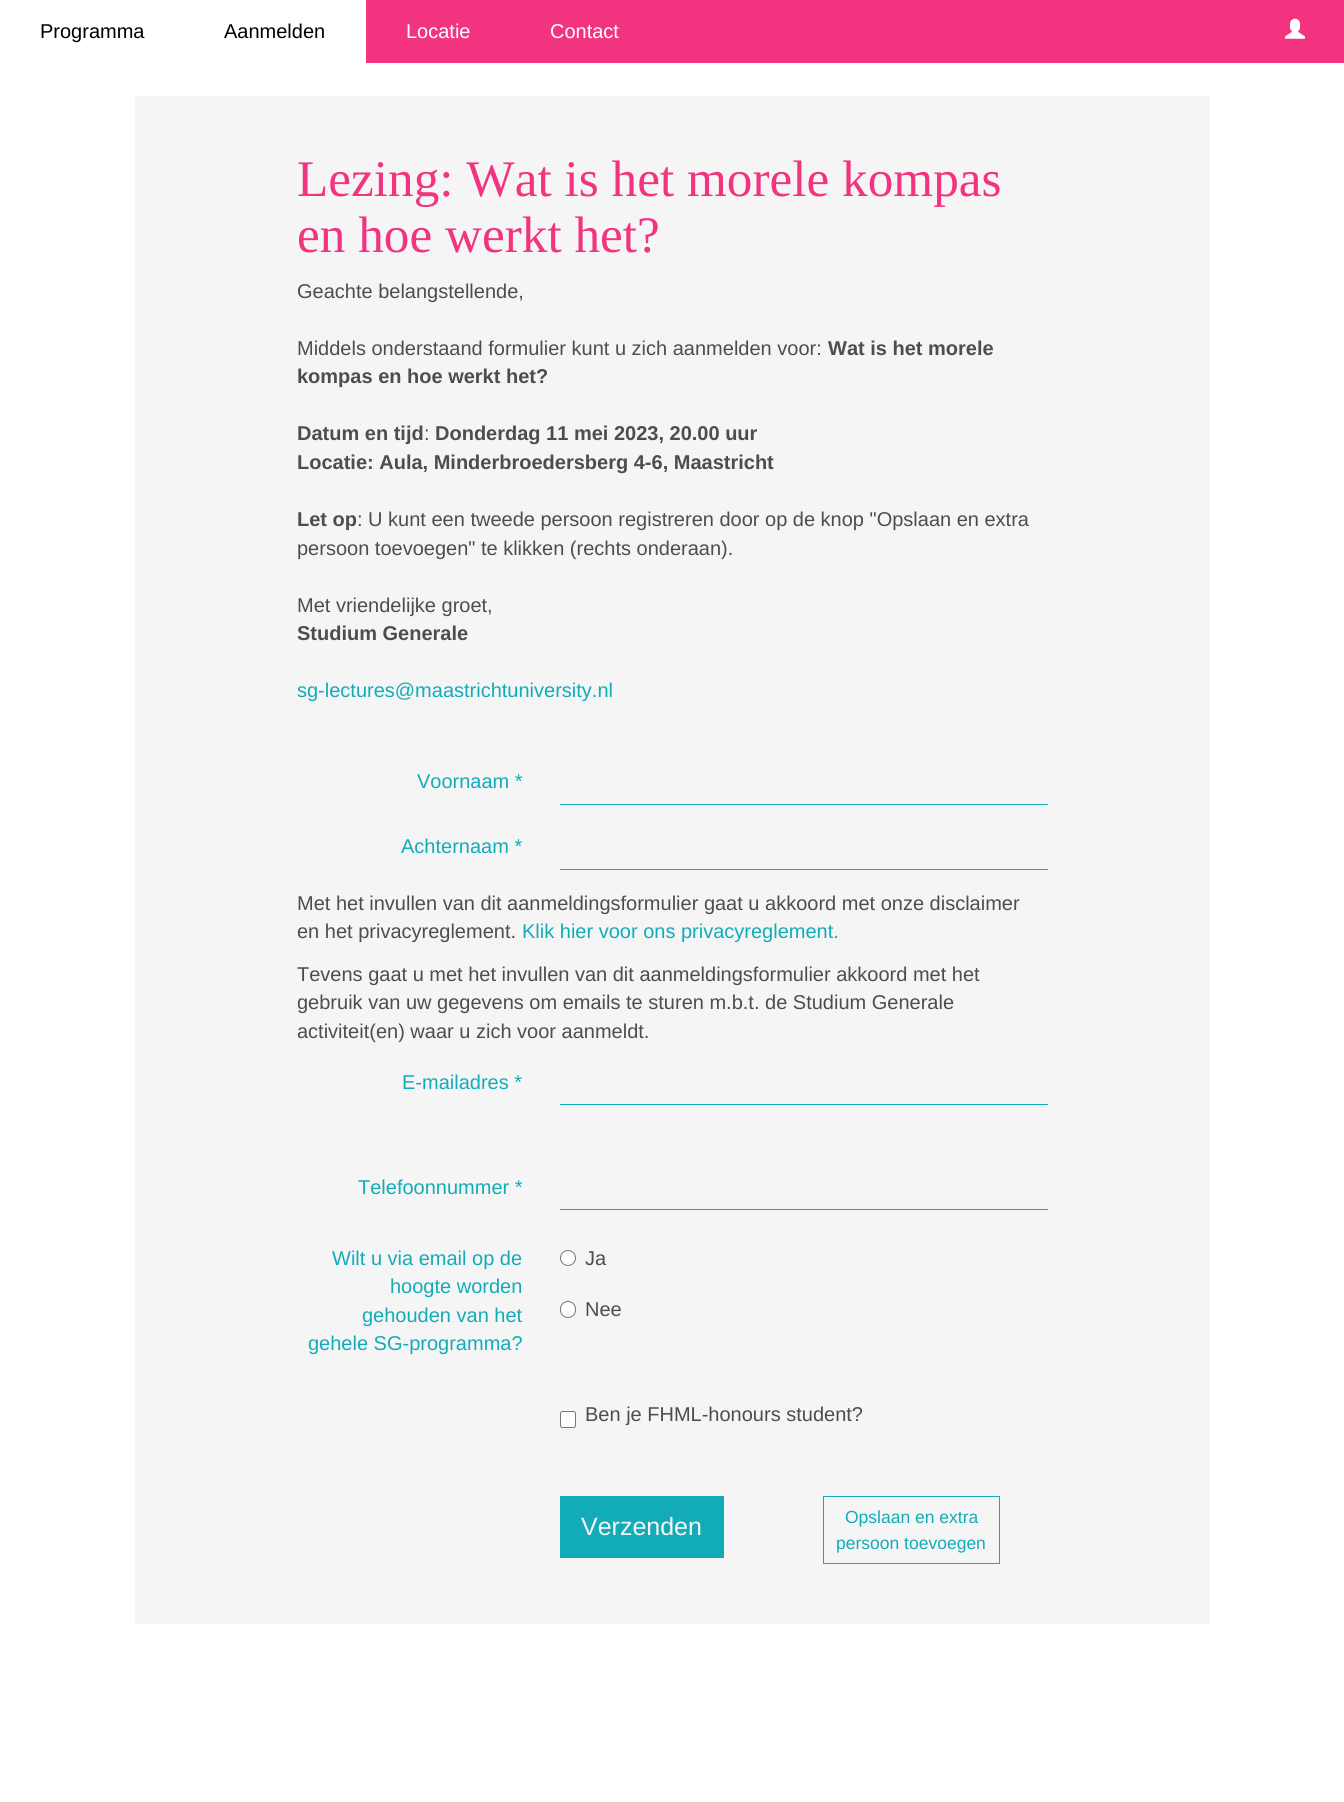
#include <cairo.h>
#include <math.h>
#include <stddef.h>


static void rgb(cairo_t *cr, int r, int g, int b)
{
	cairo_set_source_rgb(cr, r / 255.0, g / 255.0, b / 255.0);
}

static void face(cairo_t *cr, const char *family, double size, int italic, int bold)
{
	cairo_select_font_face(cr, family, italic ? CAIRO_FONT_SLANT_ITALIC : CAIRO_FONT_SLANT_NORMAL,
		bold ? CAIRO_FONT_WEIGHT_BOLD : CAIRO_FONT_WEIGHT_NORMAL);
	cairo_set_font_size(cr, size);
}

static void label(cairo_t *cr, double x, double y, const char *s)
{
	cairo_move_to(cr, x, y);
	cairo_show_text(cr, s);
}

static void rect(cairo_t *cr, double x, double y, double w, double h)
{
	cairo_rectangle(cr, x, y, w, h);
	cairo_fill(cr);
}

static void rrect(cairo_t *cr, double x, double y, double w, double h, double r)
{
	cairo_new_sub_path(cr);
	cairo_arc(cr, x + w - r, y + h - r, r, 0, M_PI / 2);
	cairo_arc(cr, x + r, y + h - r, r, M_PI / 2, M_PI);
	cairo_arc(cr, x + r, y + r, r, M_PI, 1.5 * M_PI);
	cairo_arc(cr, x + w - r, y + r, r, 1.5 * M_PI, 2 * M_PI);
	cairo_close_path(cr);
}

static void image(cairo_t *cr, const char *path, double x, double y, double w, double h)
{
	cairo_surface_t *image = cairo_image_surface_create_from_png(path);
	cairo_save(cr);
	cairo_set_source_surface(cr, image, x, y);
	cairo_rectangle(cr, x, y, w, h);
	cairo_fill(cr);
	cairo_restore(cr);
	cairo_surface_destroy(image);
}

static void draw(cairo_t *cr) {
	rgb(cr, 255, 255, 255);
	cairo_paint(cr);
	rgb(cr, 242, 52, 128);
	rect(cr, 366, 0, 978, 63);
	face(cr, "Liberation Sans", 20, 0, 0);
	rgb(cr, 0, 0, 0);
	label(cr, 40, 38, "Programma");
	label(cr, 224, 38, "Aanmelden");
	rgb(cr, 255, 255, 255);
	label(cr, 406, 38, "Locatie");
	label(cr, 550, 38, "Contact");
	image(cr, "image0.png", 1285, 18, 20, 21);
	rgb(cr, 245, 245, 245);
	rect(cr, 135, 96, 1075, 1528);
	face(cr, "Liberation Serif", 51.25, 0, 0);
	rgb(cr, 242, 52, 128);
	label(cr, 297, 196, "Lezing: Wat is het morele kompas");
	label(cr, 297, 252, "en hoe werkt het?");
	face(cr, "Liberation Sans", 20, 0, 0);
	rgb(cr, 77, 77, 77);
	label(cr, 297, 298, "Geachte belangstellende,");
	label(cr, 297, 355, "Middels onderstaand formulier kunt u zich aanmelden voor:");
	face(cr, "Liberation Sans", 20, 0, 1);
	label(cr, 828, 355, "Wat is het morele");
	label(cr, 297, 383, "kompas en hoe werkt het?");
	label(cr, 297, 440, "Datum en tijd");
	face(cr, "Liberation Sans", 20, 0, 0);
	label(cr, 424, 440, ":");
	face(cr, "Liberation Sans", 20, 0, 1);
	label(cr, 435, 440, "Donderdag 11 mei 2023, 20.00 uur");
	label(cr, 297, 469, "Locatie: Aula, Minderbroedersberg 4-6, Maastricht");
	label(cr, 297, 526, "Let op");
	face(cr, "Liberation Sans", 20, 0, 0);
	label(cr, 357, 526, ": U kunt een tweede persoon registreren door op de knop \"Opslaan en extra");
	label(cr, 297, 555, "persoon toevoegen\" te klikken (rechts onderaan).");
	label(cr, 297, 612, "Met vriendelijke groet,");
	face(cr, "Liberation Sans", 20, 0, 1);
	label(cr, 297, 640, "Studium Generale");
	face(cr, "Liberation Sans", 20, 0, 0);
	rgb(cr, 18, 172, 184);
	label(cr, 297, 697, "sg-lectures@maastrichtuniversity.nl");
	label(cr, 417, 788, "Voornaam *");
	rect(cr, 560, 804, 488, 1);
	label(cr, 401, 853, "Achternaam *");
	rect(cr, 560, 869, 488, 1);
	rgb(cr, 77, 77, 77);
	label(cr, 297, 910, "Met het invullen van dit aanmeldingsformulier gaat u akkoord met onze disclaimer");
	label(cr, 297, 938, "en het privacyreglement.");
	rgb(cr, 18, 172, 184);
	label(cr, 522, 938, "Klik hier voor ons privacyreglement.");
	rgb(cr, 77, 77, 77);
	label(cr, 297, 981, "Tevens gaat u met het invullen van dit aanmeldingsformulier akkoord met het");
	label(cr, 297, 1009, "gebruik van uw gegevens om emails te sturen m.b.t. de Studium Generale");
	label(cr, 297, 1038, "activiteit(en) waar u zich voor aanmeldt.");
	rgb(cr, 18, 172, 184);
	label(cr, 402, 1089, "E-mailadres *");
	rect(cr, 560, 1104, 488, 1);
	label(cr, 358, 1194, "Telefoonnummer *");
	rect(cr, 560, 1209, 488, 1);
	label(cr, 332, 1265, "Wilt u via email op de");
	label(cr, 390, 1293, "hoogte worden");
	label(cr, 362, 1322, "gehouden van het");
	label(cr, 308, 1350, "gehele SG-programma?");
	rgb(cr, 255, 255, 255);
	cairo_new_path(cr);
	cairo_arc(cr, 568, 1258, 7.5, 0, 2 * M_PI);
	cairo_fill_preserve(cr);
	rgb(cr, 118, 118, 118);
	cairo_set_line_width(cr, 1);
	cairo_stroke(cr);
	rgb(cr, 77, 77, 77);
	label(cr, 585, 1265, "Ja");
	rgb(cr, 255, 255, 255);
	rrect(cr, 560.5, 1301.5, 15, 16, 7.5);
	cairo_fill_preserve(cr);
	rgb(cr, 118, 118, 118);
	cairo_stroke(cr);
	rgb(cr, 77, 77, 77);
	label(cr, 585, 1316, "Nee");
	rgb(cr, 255, 255, 255);
	rrect(cr, 560.5, 1411.5, 15, 16, 2);
	cairo_fill_preserve(cr);
	rgb(cr, 118, 118, 118);
	cairo_stroke(cr);
	rgb(cr, 77, 77, 77);
	label(cr, 585, 1421, "Ben je FHML-honours student?");
	rgb(cr, 18, 172, 184);
	rect(cr, 560, 1496, 164, 62);
	face(cr, "Liberation Sans", 25, 0, 0);
	rgb(cr, 245, 245, 245);
	label(cr, 581, 1535, "Verzenden");
	cairo_rectangle(cr, 823.5, 1496.5, 176, 67);
	rgb(cr, 18, 172, 184);
	cairo_stroke(cr);
	face(cr, "Liberation Sans", 17.5, 0, 0);
	label(cr, 845, 1523, "Opslaan en extra");
	label(cr, 836, 1549, "persoon toevoegen");
}

int main(void) {
	cairo_surface_t *surface = cairo_image_surface_create(CAIRO_FORMAT_RGB24, 1344, 1802);
	cairo_t *cr = cairo_create(surface);
	cairo_font_options_t *options = cairo_font_options_create();
	cairo_font_options_set_hint_metrics(options, CAIRO_HINT_METRICS_OFF);
	cairo_font_options_set_hint_style(options, CAIRO_HINT_STYLE_NONE);
	cairo_set_font_options(cr, options);
	cairo_set_miter_limit(cr, 4);
	draw(cr);
	cairo_surface_write_to_png(surface, "render.png");
	cairo_font_options_destroy(options);
	cairo_destroy(cr);
	cairo_surface_destroy(surface);
	return 0;
}
